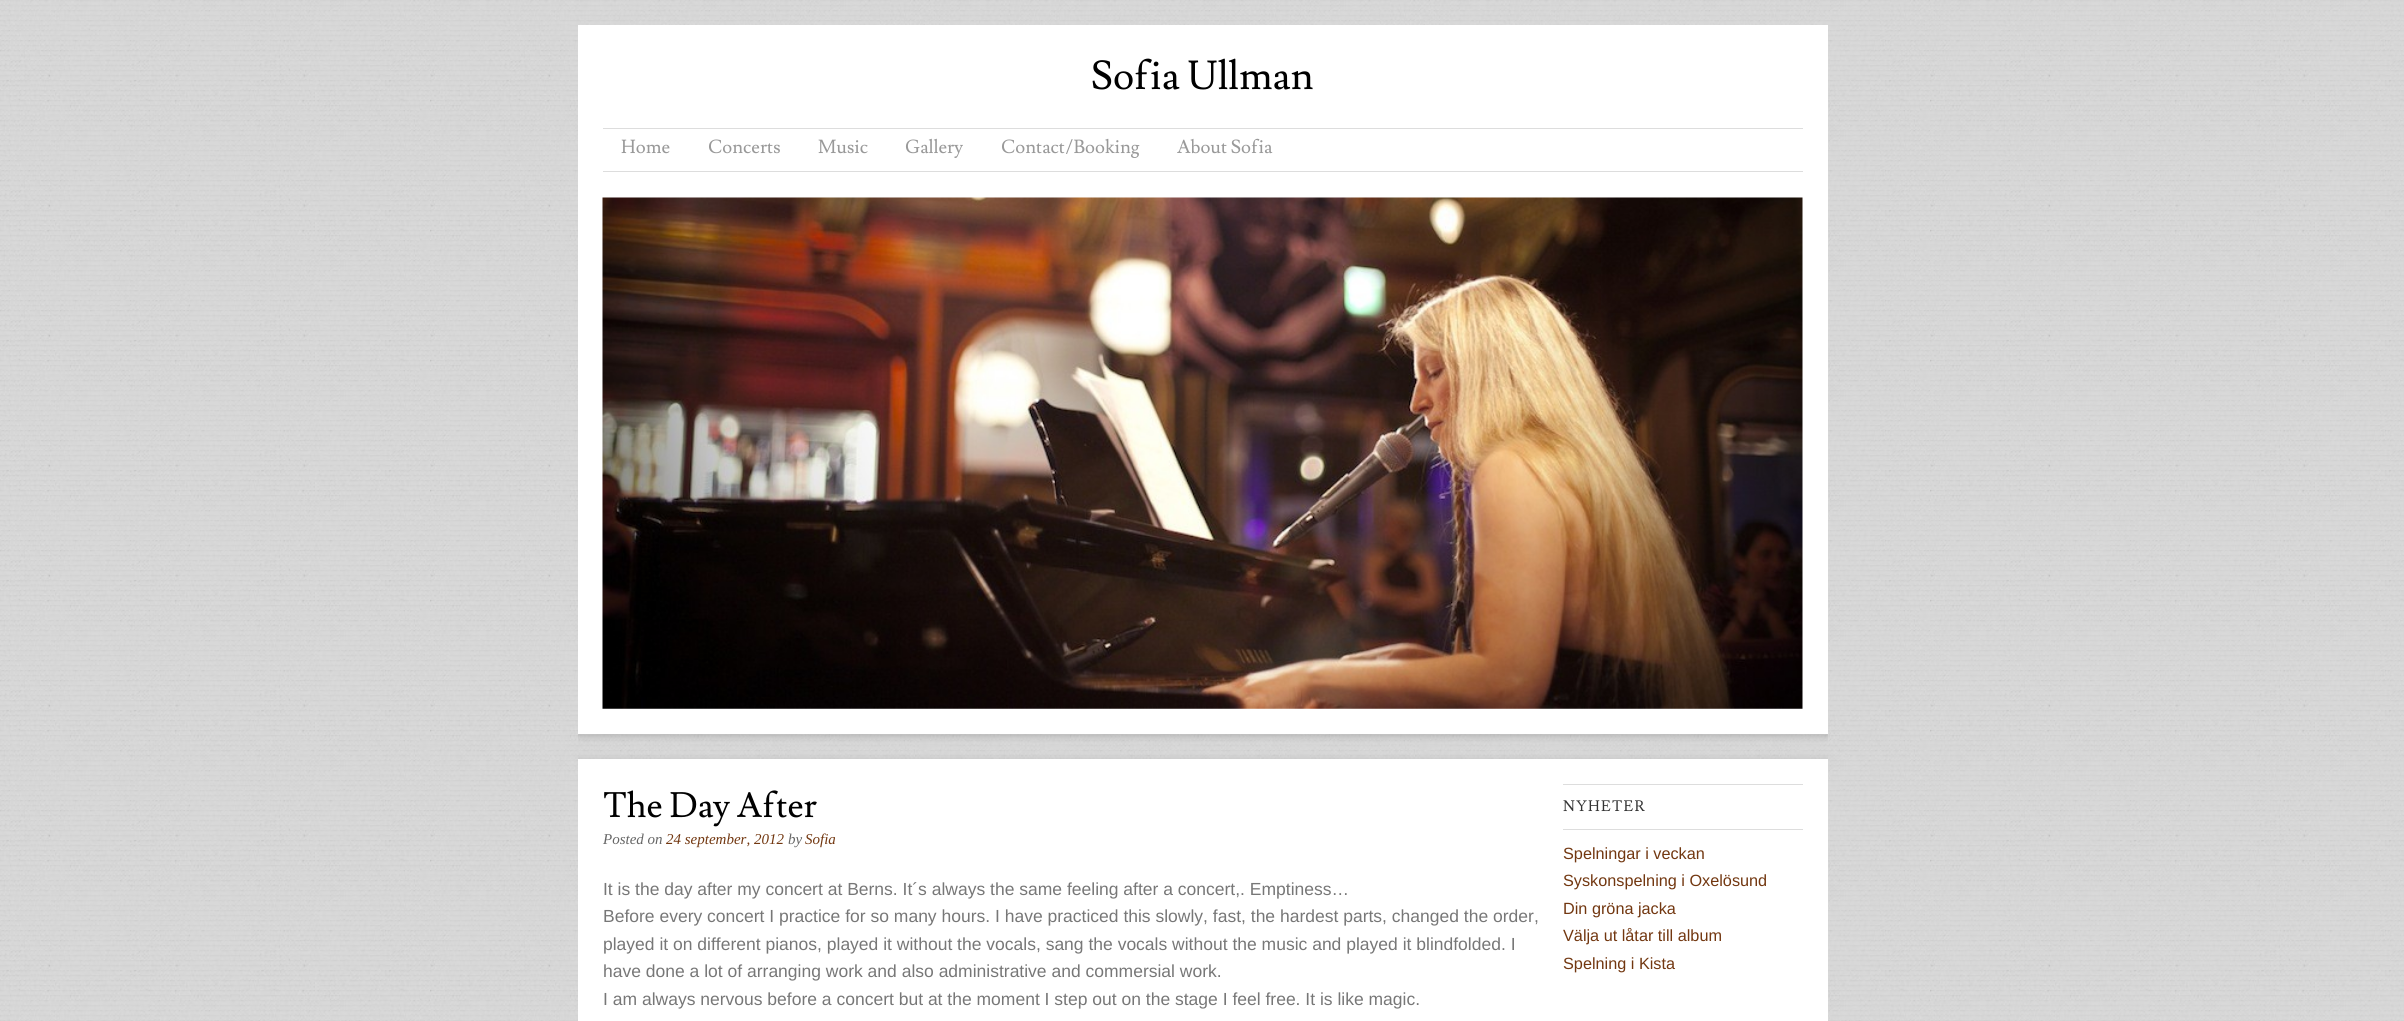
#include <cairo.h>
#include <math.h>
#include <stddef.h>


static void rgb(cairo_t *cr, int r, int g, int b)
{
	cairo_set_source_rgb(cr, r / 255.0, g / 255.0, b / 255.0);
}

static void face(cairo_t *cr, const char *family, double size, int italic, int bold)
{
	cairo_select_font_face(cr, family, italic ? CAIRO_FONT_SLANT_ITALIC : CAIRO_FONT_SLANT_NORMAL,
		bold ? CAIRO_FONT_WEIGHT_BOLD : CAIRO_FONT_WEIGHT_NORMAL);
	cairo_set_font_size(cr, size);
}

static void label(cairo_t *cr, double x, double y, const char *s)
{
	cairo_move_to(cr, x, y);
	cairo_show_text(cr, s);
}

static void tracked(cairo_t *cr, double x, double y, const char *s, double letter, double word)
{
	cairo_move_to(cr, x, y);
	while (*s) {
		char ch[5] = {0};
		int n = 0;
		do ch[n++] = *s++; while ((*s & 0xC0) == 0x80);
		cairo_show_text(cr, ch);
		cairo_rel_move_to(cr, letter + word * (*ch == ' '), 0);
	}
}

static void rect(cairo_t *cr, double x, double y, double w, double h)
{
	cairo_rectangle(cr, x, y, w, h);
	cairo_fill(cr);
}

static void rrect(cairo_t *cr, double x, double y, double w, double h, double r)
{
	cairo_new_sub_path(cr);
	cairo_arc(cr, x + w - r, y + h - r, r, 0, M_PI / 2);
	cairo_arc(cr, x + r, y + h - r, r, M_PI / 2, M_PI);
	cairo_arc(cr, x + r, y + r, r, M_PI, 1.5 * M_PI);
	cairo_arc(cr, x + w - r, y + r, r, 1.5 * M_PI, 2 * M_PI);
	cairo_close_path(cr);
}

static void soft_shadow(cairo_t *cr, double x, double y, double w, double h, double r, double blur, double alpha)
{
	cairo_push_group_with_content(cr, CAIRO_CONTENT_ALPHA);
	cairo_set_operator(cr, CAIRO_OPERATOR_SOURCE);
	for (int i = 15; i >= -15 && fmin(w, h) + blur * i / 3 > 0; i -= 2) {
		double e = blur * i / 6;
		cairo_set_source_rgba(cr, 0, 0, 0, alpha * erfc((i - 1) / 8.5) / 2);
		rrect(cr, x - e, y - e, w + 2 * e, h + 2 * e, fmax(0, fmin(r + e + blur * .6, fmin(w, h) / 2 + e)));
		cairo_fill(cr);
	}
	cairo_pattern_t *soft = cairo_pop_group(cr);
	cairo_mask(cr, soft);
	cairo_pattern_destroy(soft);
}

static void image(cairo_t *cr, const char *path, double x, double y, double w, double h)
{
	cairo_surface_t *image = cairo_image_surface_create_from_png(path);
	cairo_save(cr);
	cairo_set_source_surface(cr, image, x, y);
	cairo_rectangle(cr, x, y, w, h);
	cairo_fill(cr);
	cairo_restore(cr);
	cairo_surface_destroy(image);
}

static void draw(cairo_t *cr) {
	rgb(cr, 255, 255, 255);
	cairo_paint(cr);
	image(cr, "image0.png", 0, 0, 2404, 1021);
	cairo_save(cr);
	cairo_rectangle(cr, 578, 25, 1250, 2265);
	cairo_clip(cr);
	rgb(cr, 100, 100, 100);
	soft_shadow(cr, 578, 28, 1250, 708, 0, 4, 0.3);
	cairo_restore(cr);
	rgb(cr, 255, 255, 255);
	rect(cr, 578, 25, 1250, 709);
	face(cr, "Lusitana", 40, 0, 0);
	rgb(cr, 0, 0, 0);
	label(cr, 1091, 89, "Sofia Ullman");
	rgb(cr, 221, 221, 221);
	rect(cr, 603, 128, 1200, 1);
	rect(cr, 603, 171, 1200, 1);
	face(cr, "Lusitana", 18.75, 0, 0);
	rgb(cr, 153, 153, 153);
	label(cr, 621, 153, "Home");
	label(cr, 708, 153, "Concerts");
	label(cr, 818, 153, "Music");
	label(cr, 905, 153, "Gallery");
	label(cr, 1001, 153, "Contact/Booking");
	label(cr, 1177, 153, "About Sofia");
	image(cr, "image1.png", 602, 197, 1201, 512);
	cairo_save(cr);
	cairo_rectangle(cr, 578, 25, 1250, 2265);
	cairo_clip(cr);
	rgb(cr, 100, 100, 100);
	soft_shadow(cr, 578, 761, 1250, 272, 0, 4, 0.3);
	cairo_restore(cr);
	rgb(cr, 255, 255, 255);
	rect(cr, 578, 759, 1250, 262);
	face(cr, "Lusitana", 35, 0, 0);
	rgb(cr, 0, 0, 0);
	label(cr, 603, 817, "The Day After");
	face(cr, "Liberation Serif", 15, 1, 0);
	rgb(cr, 102, 102, 102);
	label(cr, 603, 844, "Posted on");
	rgb(cr, 114, 55, 16);
	label(cr, 666, 844, "24 september, 2012");
	rgb(cr, 102, 102, 102);
	label(cr, 788, 844, "by");
	rgb(cr, 114, 55, 16);
	label(cr, 805, 844, "Sofia");
	face(cr, "Liberation Sans", 17.5, 0, 0);
	rgb(cr, 119, 119, 119);
	label(cr, 603, 895, "It is the day after my concert at Berns. It´s always the same feeling after a concert,. Emptiness…");
	label(cr, 603, 922, "Before every concert I practice for so many hours. I have practiced this slowly, fast, the hardest parts, changed the order,");
	label(cr, 603, 950, "played it on different pianos, played it without the vocals, sang the vocals without the music and played it blindfolded. I");
	label(cr, 603, 977, "have done a lot of arranging work and also administrative and commersial work.");
	label(cr, 603, 1005, "I am always nervous before a concert but at the moment I step out on the stage I feel free. It is like magic.");
	rgb(cr, 221, 221, 221);
	rect(cr, 1563, 784, 240, 1);
	rect(cr, 1563, 829, 240, 1);
	face(cr, "Lusitana", 15, 0, 0);
	rgb(cr, 51, 51, 51);
	tracked(cr, 1563, 811, "NYHETER", 1.25, 0);
	face(cr, "Liberation Sans", 16.25, 0, 0);
	rgb(cr, 114, 55, 16);
	label(cr, 1563, 859, "Spelningar i veckan");
	label(cr, 1563, 886, "Syskonspelning i Oxelösund");
	label(cr, 1563, 914, "Din gröna jacka");
	label(cr, 1563, 941, "Välja ut låtar till album");
	label(cr, 1563, 969, "Spelning i Kista");
}

int main(void) {
	cairo_surface_t *surface = cairo_image_surface_create(CAIRO_FORMAT_RGB24, 2404, 1021);
	cairo_t *cr = cairo_create(surface);
	cairo_font_options_t *options = cairo_font_options_create();
	cairo_font_options_set_hint_metrics(options, CAIRO_HINT_METRICS_OFF);
	cairo_font_options_set_hint_style(options, CAIRO_HINT_STYLE_NONE);
	cairo_set_font_options(cr, options);
	cairo_set_miter_limit(cr, 4);
	draw(cr);
	cairo_surface_write_to_png(surface, "render.png");
	cairo_font_options_destroy(options);
	cairo_destroy(cr);
	cairo_surface_destroy(surface);
	return 0;
}
